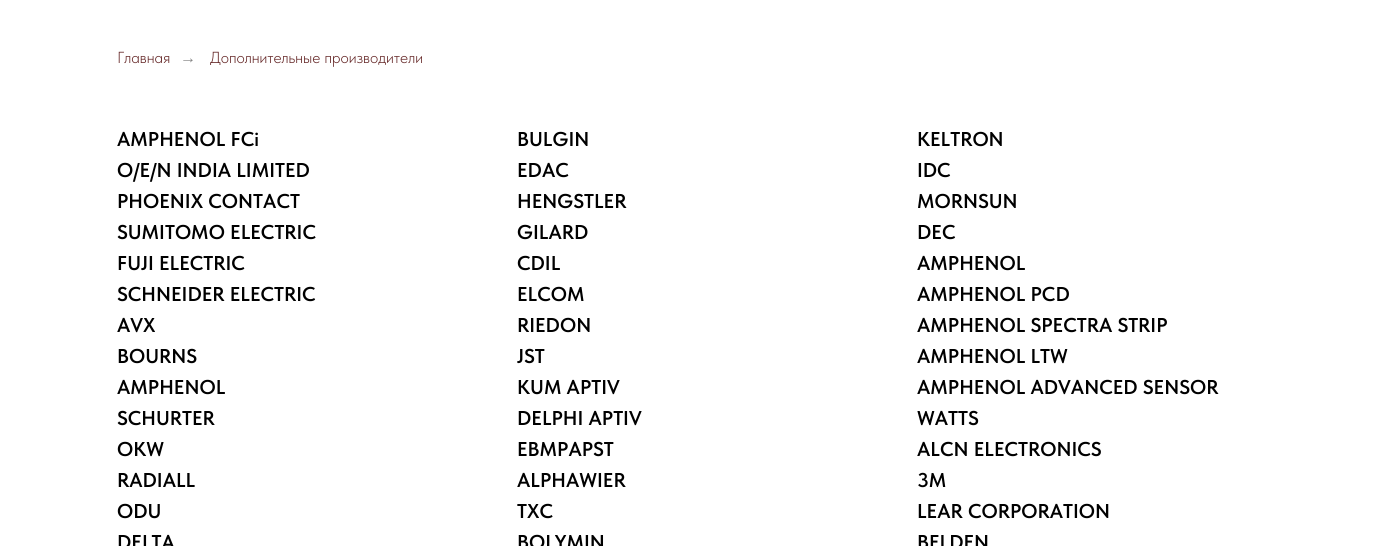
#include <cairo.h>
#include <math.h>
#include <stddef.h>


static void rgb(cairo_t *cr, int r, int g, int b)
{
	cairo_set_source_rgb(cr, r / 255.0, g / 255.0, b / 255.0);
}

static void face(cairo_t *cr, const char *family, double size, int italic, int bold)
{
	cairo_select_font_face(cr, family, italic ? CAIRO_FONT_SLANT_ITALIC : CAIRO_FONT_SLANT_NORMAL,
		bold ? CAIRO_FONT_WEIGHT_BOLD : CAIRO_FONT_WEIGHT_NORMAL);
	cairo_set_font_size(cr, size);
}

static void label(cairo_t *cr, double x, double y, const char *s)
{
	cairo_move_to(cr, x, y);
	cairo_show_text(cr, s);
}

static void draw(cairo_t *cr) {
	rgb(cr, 255, 255, 255);
	cairo_paint(cr);
	face(cr, "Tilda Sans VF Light", 16, 0, 0);
	rgb(cr, 100, 38, 38);
	label(cr, 117, 63, "Главная");
	face(cr, "Liberation Sans", 16, 0, 0);
	rgb(cr, 133, 133, 133);
	label(cr, 180, 63, "→");
	face(cr, "Tilda Sans VF Light", 16, 0, 0);
	rgb(cr, 100, 38, 38);
	label(cr, 210, 63, "Дополнительные производители");
	face(cr, "Tilda Sans VF SemiBold", 20, 0, 0);
	rgb(cr, 0, 0, 0);
	label(cr, 117, 146, "AMPHENOL FCi");
	label(cr, 117, 177, "O/E/N INDIA LIMITED");
	label(cr, 117, 208, "PHOENIX CONTACT");
	label(cr, 117, 239, "SUMITOMO ELECTRIC");
	label(cr, 117, 270, "FUJI ELECTRIC");
	label(cr, 117, 301, "SCHNEIDER ELECTRIC");
	label(cr, 117, 332, "AVX");
	label(cr, 117, 363, "BOURNS");
	label(cr, 117, 394, "AMPHENOL");
	label(cr, 117, 425, "SCHURTER");
	label(cr, 117, 456, "OKW");
	label(cr, 117, 487, "RADIALL");
	label(cr, 117, 518, "ODU");
	label(cr, 117, 549, "DELTA");
	label(cr, 517, 146, "BULGIN");
	label(cr, 517, 177, "EDAC");
	label(cr, 517, 208, "HENGSTLER");
	label(cr, 517, 239, "GILARD");
	label(cr, 517, 270, "CDIL");
	label(cr, 517, 301, "ELCOM");
	label(cr, 517, 332, "RIEDON");
	label(cr, 517, 363, "JST");
	label(cr, 517, 394, "KUM APTIV");
	label(cr, 517, 425, "DELPHI APTIV");
	label(cr, 517, 456, "EBMPAPST");
	label(cr, 517, 487, "ALPHAWIER");
	label(cr, 517, 518, "TXC");
	label(cr, 517, 549, "BOLYMIN");
	label(cr, 917, 146, "KELTRON");
	label(cr, 917, 177, "IDC");
	label(cr, 917, 208, "MORNSUN");
	label(cr, 917, 239, "DEC");
	label(cr, 917, 270, "AMPHENOL");
	label(cr, 917, 301, "AMPHENOL PCD");
	label(cr, 917, 332, "AMPHENOL SPECTRA STRIP");
	label(cr, 917, 363, "AMPHENOL LTW");
	label(cr, 917, 394, "AMPHENOL ADVANCED SENSOR");
	label(cr, 917, 425, "WATTS");
	label(cr, 917, 456, "ALCN ELECTRONICS");
	label(cr, 917, 487, "3M");
	label(cr, 917, 518, "LEAR CORPORATION");
	label(cr, 917, 549, "BELDEN");
}

int main(void) {
	cairo_surface_t *surface = cairo_image_surface_create(CAIRO_FORMAT_RGB24, 1394, 546);
	cairo_t *cr = cairo_create(surface);
	cairo_font_options_t *options = cairo_font_options_create();
	cairo_font_options_set_hint_metrics(options, CAIRO_HINT_METRICS_OFF);
	cairo_font_options_set_hint_style(options, CAIRO_HINT_STYLE_NONE);
	cairo_set_font_options(cr, options);
	cairo_set_miter_limit(cr, 4);
	draw(cr);
	cairo_surface_write_to_png(surface, "render.png");
	cairo_font_options_destroy(options);
	cairo_destroy(cr);
	cairo_surface_destroy(surface);
	return 0;
}
